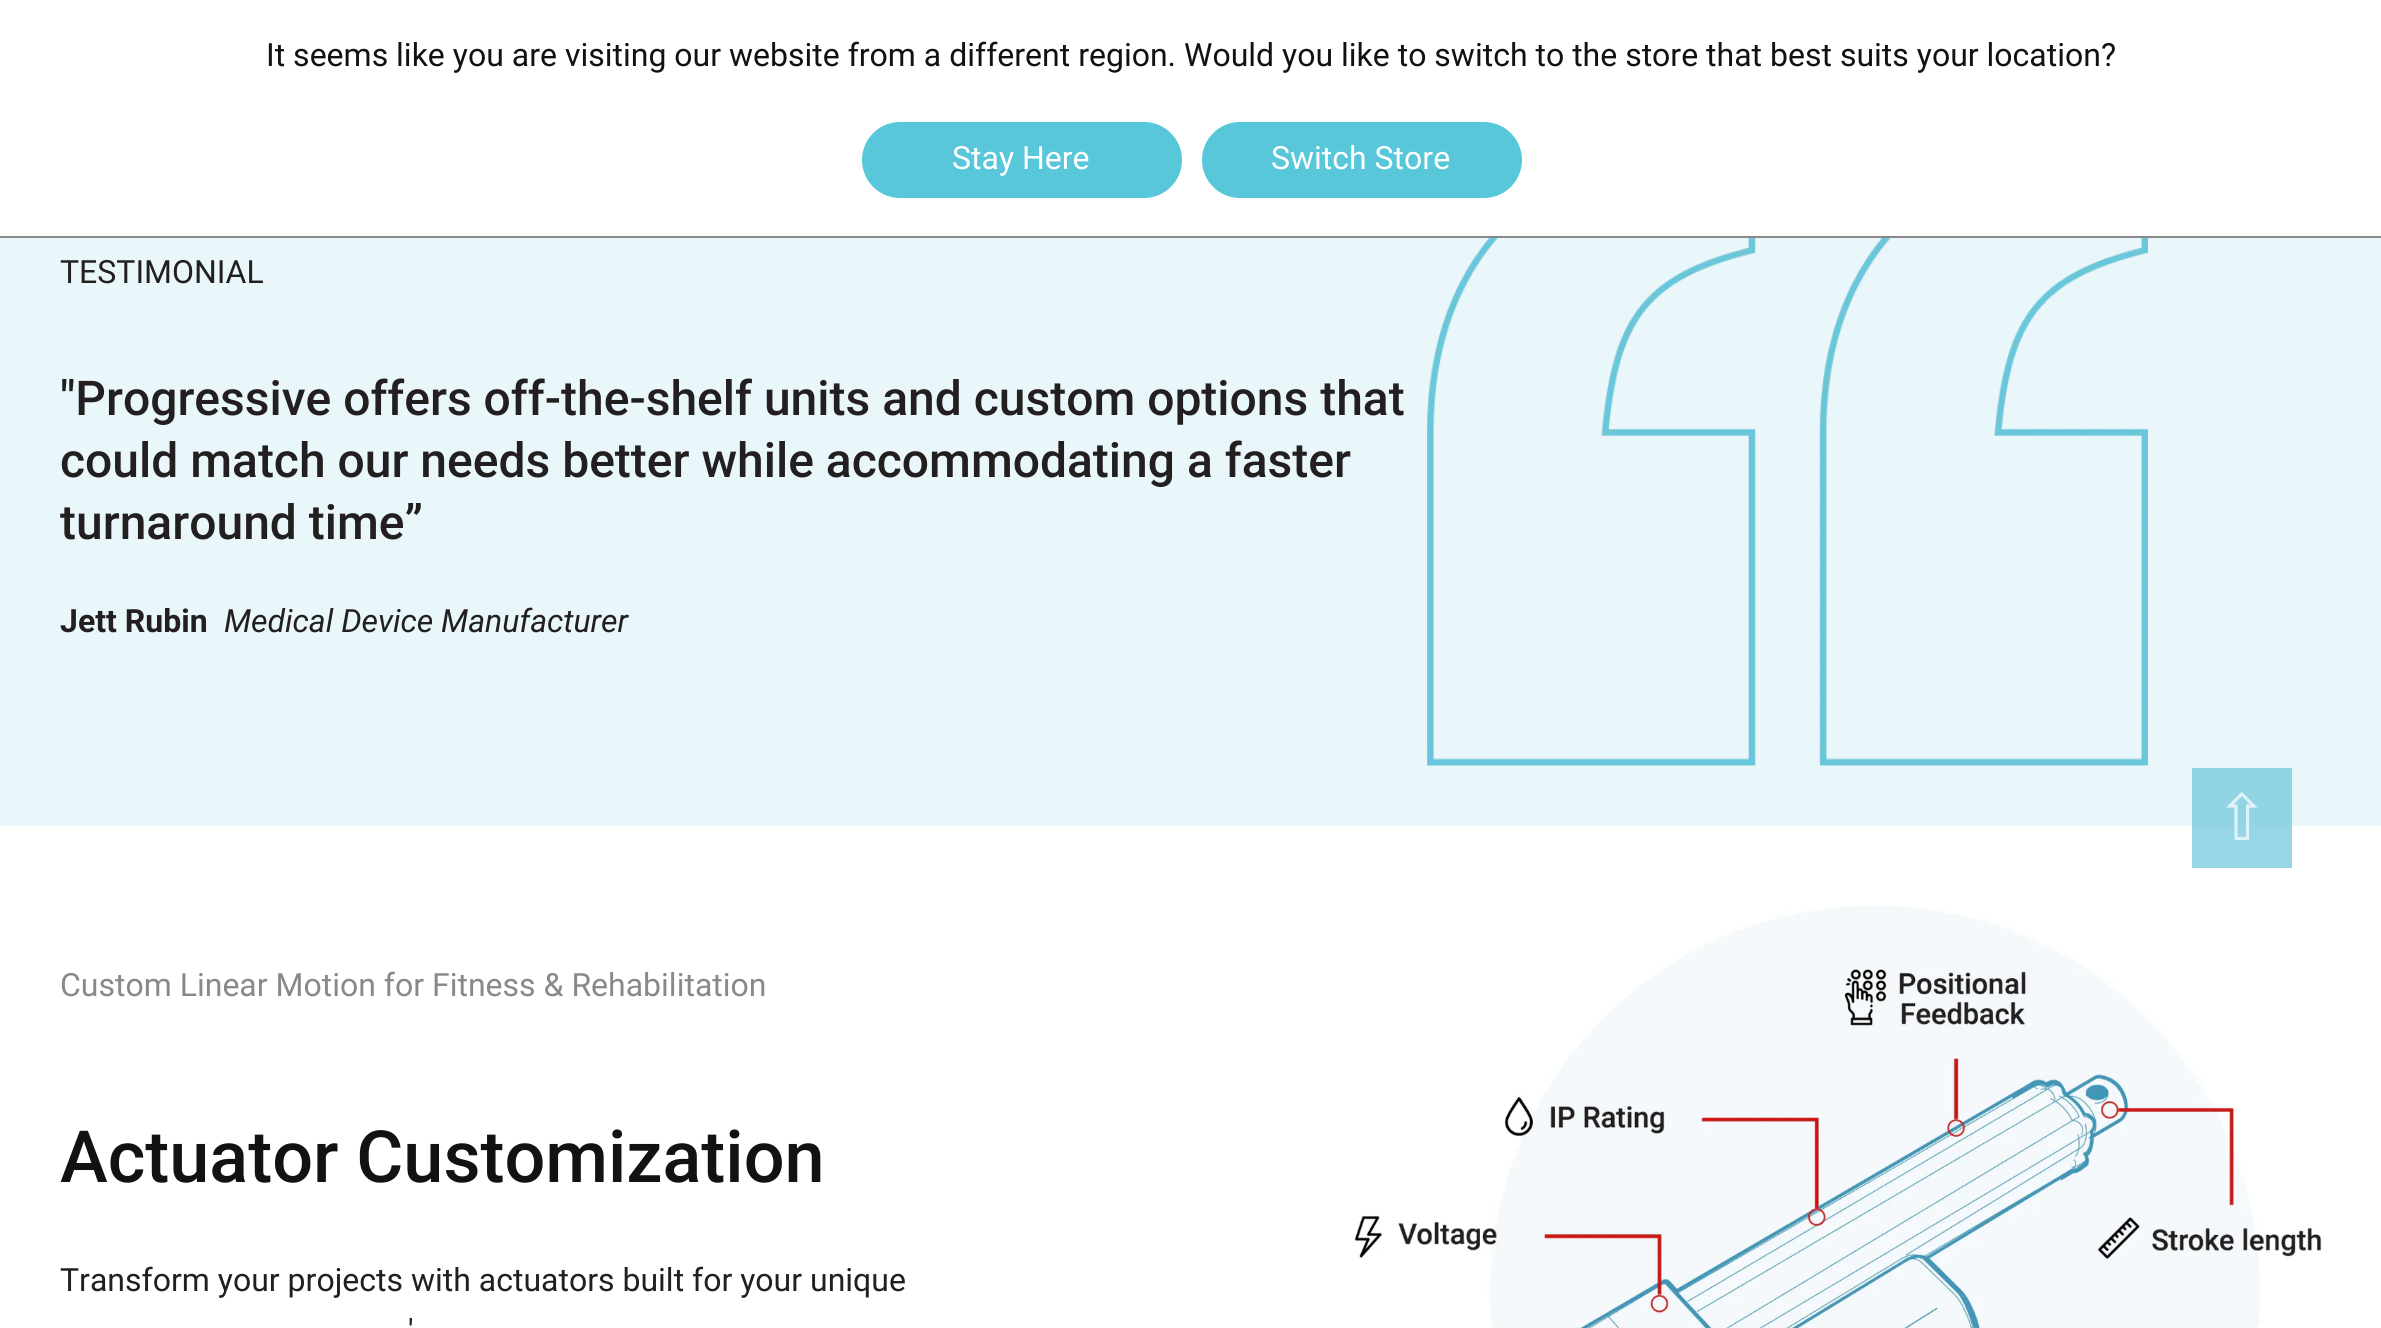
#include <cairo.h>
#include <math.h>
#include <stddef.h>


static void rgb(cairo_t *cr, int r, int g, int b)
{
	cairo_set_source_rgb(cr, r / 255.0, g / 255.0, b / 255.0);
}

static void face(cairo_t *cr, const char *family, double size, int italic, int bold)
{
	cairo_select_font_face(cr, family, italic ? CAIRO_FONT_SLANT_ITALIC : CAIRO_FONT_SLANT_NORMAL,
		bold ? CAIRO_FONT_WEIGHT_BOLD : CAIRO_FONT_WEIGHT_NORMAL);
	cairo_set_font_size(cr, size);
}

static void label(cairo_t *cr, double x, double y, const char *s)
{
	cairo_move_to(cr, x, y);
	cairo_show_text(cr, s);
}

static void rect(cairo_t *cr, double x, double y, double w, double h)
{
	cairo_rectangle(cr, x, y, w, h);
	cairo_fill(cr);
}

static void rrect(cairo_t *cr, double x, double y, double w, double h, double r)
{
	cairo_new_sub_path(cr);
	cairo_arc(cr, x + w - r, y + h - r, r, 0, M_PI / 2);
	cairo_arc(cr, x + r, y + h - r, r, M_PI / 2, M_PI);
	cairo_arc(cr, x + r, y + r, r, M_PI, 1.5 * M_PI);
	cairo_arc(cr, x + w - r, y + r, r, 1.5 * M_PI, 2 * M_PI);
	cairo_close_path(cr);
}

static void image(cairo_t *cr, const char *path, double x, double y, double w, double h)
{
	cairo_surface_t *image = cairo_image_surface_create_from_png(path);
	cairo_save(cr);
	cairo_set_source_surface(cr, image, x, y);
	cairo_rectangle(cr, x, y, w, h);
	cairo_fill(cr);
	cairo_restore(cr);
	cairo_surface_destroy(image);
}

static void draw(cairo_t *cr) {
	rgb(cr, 255, 255, 255);
	cairo_paint(cr);
	rgb(cr, 151, 214, 230);
	rect(cr, 2192, 826, 100, 42);
	face(cr, "Roboto", 32, 0, 0);
	rgb(cr, 18, 18, 18);
	label(cr, 266, 66, "It seems like you are visiting our website from a different region. Would you like to switch to the store that best suits your location?");
	rgb(cr, 87, 199, 217);
	rrect(cr, 863, 123, 318, 74, 37);
	cairo_fill_preserve(cr);
	cairo_stroke(cr);
	rgb(cr, 255, 255, 255);
	label(cr, 952, 169, "Stay Here");
	rgb(cr, 87, 199, 217);
	rrect(cr, 1203, 123, 318, 74, 37);
	cairo_fill_preserve(cr);
	cairo_stroke(cr);
	rgb(cr, 255, 255, 255);
	label(cr, 1271, 169, "Switch Store");
	rgb(cr, 137, 137, 137);
	rect(cr, 0, 236, 2381, 2);
	rgb(cr, 233, 247, 250);
	rect(cr, 0, 238, 2381, 588);
	rgb(cr, 145, 212, 228);
	rect(cr, 2192, 768, 100, 58);
	rgb(cr, 35, 31, 32);
	label(cr, 60, 283, "TESTIMONIAL");
	face(cr, "Roboto Medium", 48, 0, 0);
	label(cr, 60, 415, "\"Progressive offers off-the-shelf units and custom options that");
	label(cr, 60, 477, "could match our needs better while accommodating a faster");
	label(cr, 60, 539, "turnaround time”");
	face(cr, "Roboto", 32, 0, 1);
	label(cr, 60, 632, "Jett Rubin");
	face(cr, "Roboto", 32, 1, 0);
	label(cr, 224, 632, "Medical Device Manufacturer");
	image(cr, "image0.png", 1427, 238, 721, 528);
	face(cr, "Roboto", 32, 0, 0);
	rgb(cr, 137, 137, 137);
	label(cr, 60, 996, "Custom Linear Motion for Fitness & Rehabilitation");
	face(cr, "Roboto Medium", 72, 0, 0);
	rgb(cr, 18, 18, 18);
	label(cr, 60, 1182, "Actuator Customization");
	face(cr, "Roboto", 32, 0, 0);
	rgb(cr, 35, 31, 32);
	label(cr, 60, 1291, "Transform your projects with actuators built for your unique");
	label(cr, 408, 1342, "'");
	image(cr, "image1.png", 1354, 906, 968, 422);
	face(cr, "DejaVu Sans", 64, 0, 0);
	rgb(cr, 222, 242, 247);
	label(cr, 2215, 840, "⇧");
}

int main(void) {
	cairo_surface_t *surface = cairo_image_surface_create(CAIRO_FORMAT_RGB24, 2381, 1328);
	cairo_t *cr = cairo_create(surface);
	cairo_font_options_t *options = cairo_font_options_create();
	cairo_font_options_set_hint_metrics(options, CAIRO_HINT_METRICS_OFF);
	cairo_font_options_set_hint_style(options, CAIRO_HINT_STYLE_NONE);
	cairo_set_font_options(cr, options);
	cairo_set_miter_limit(cr, 4);
	draw(cr);
	cairo_surface_write_to_png(surface, "render.png");
	cairo_font_options_destroy(options);
	cairo_destroy(cr);
	cairo_surface_destroy(surface);
	return 0;
}
